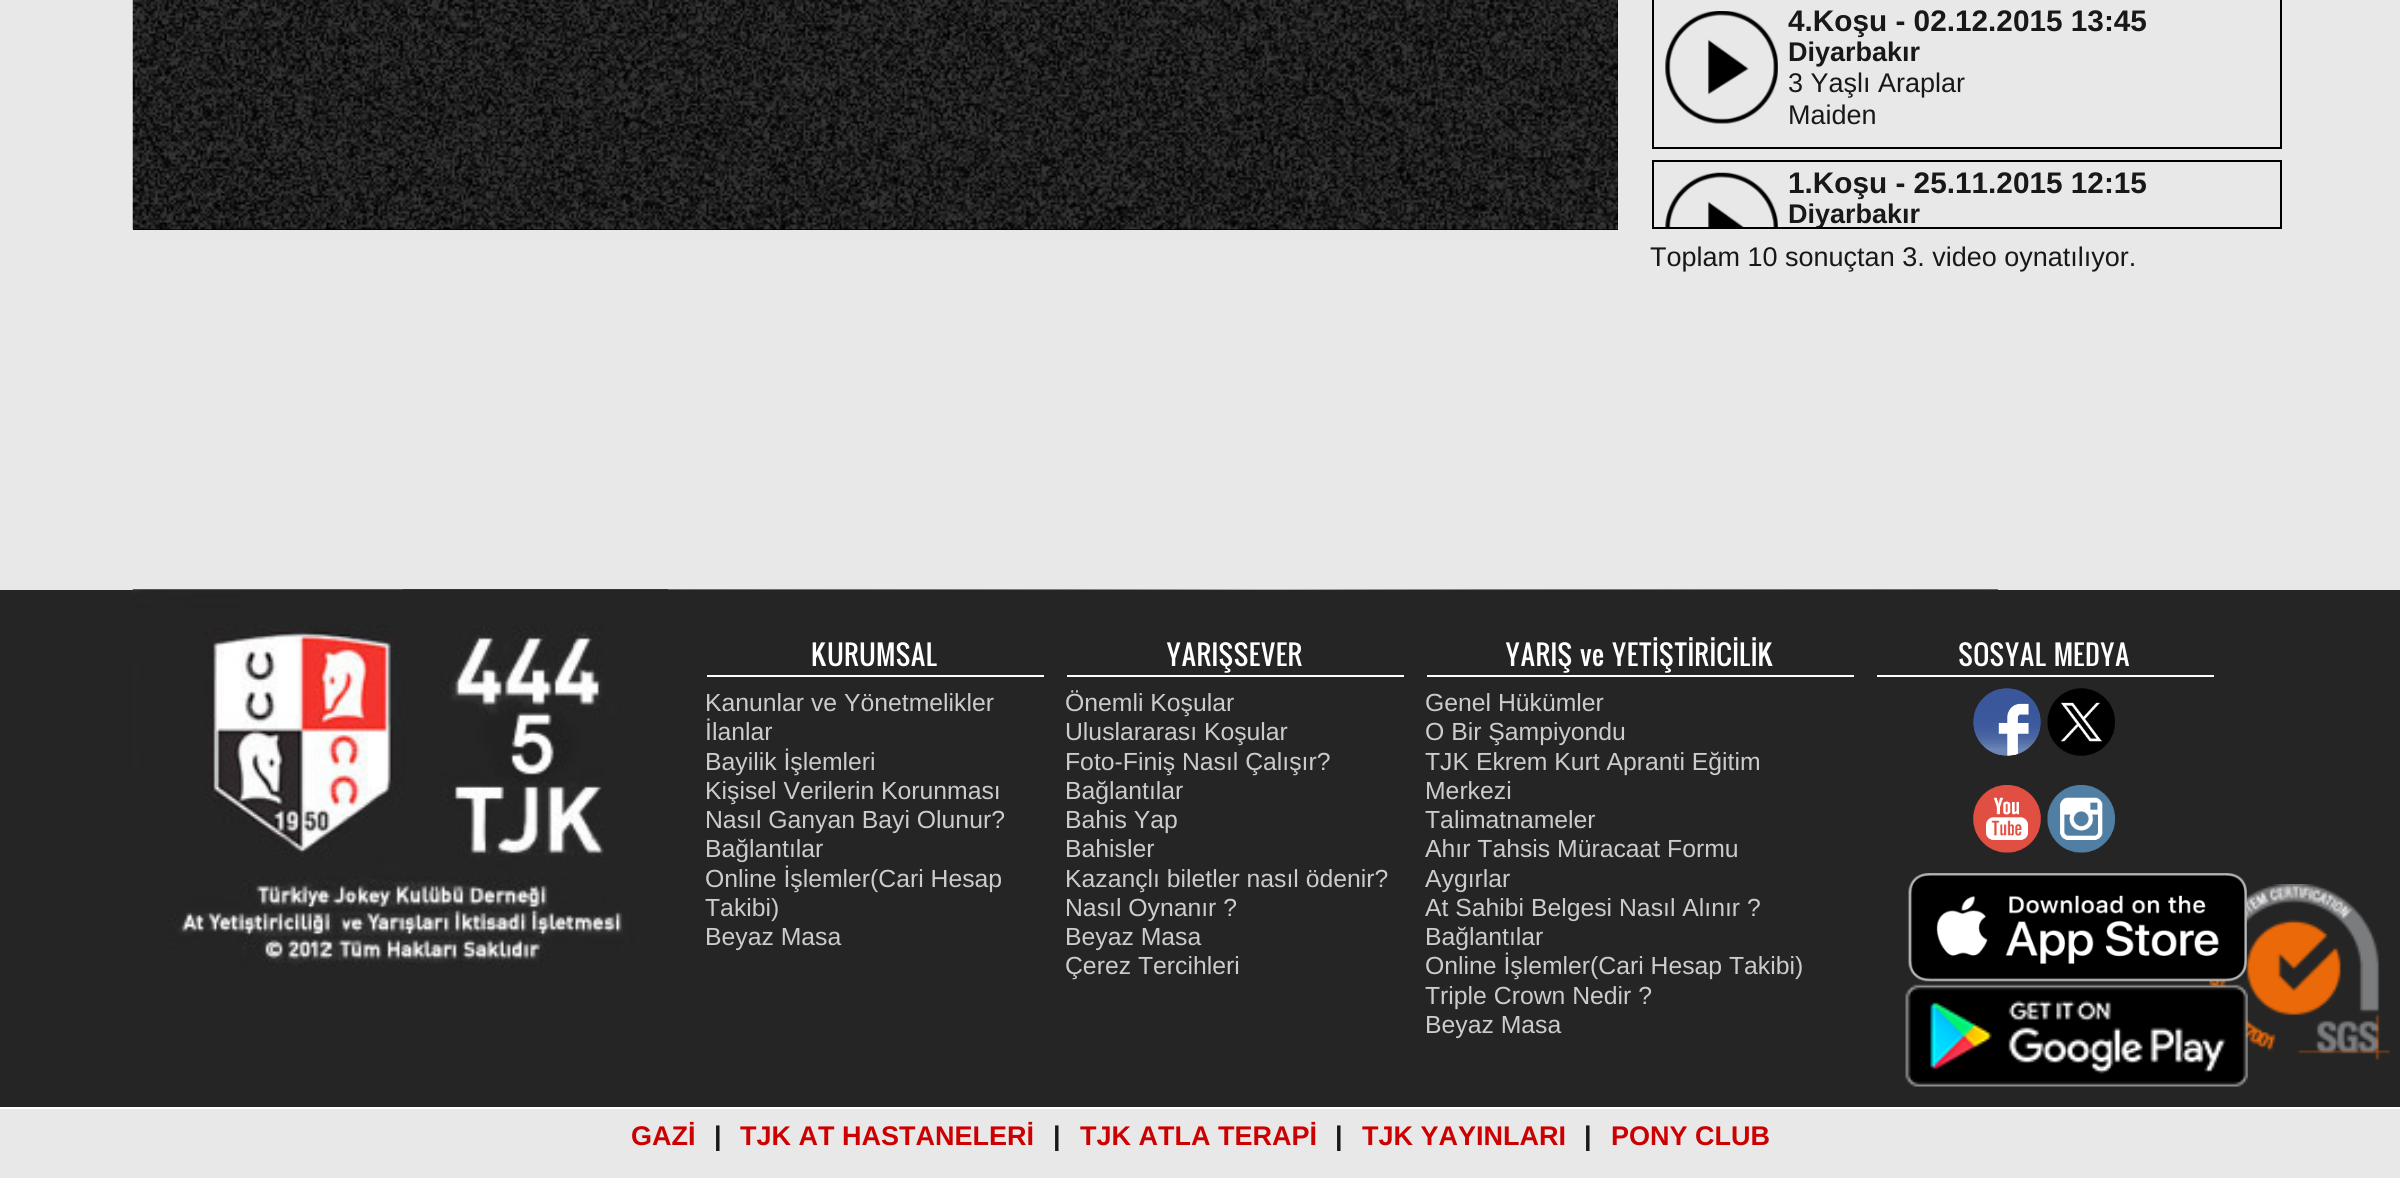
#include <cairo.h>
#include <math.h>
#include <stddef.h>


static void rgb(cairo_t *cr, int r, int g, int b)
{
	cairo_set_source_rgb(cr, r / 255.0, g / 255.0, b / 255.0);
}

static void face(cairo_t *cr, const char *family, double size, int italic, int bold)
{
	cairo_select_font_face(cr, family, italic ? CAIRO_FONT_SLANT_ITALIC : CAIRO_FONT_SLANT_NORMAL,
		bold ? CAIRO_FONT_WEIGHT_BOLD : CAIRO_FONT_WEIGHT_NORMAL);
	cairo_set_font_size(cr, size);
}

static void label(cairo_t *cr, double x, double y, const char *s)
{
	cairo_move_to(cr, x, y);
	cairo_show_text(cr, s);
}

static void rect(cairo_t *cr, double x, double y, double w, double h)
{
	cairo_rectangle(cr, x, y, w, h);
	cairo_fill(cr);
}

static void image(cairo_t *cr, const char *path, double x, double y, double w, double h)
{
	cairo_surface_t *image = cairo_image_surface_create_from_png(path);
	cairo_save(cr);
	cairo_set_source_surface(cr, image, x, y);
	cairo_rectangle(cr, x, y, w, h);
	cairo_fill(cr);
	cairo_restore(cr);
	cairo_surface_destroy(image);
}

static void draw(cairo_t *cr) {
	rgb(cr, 232, 232, 232);
	cairo_paint(cr);
	rgb(cr, 0, 0, 0);
	rect(cr, 133, 0, 1485, 230);
	image(cr, "image0.png", 132, 0, 1486, 230);
	rect(cr, 1652, 227, 630, 2);
	cairo_rectangle(cr, 1653, -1, 628, 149);
	cairo_stroke(cr);
	image(cr, "image1.png", 1665, 11, 113, 113);
	face(cr, "Liberation Sans", 29.75, 0, 1);
	rgb(cr, 24, 24, 24);
	label(cr, 1788, 31, "4.Koşu - 02.12.2015 13:45");
	face(cr, "Liberation Sans", 27, 0, 1);
	label(cr, 1788, 61, "Diyarbakır");
	face(cr, "Liberation Sans", 27, 0, 0);
	label(cr, 1788, 92, "3 Yaşlı Araplar");
	label(cr, 1788, 124, "Maiden");
	label(cr, 1650, 266, "Toplam 10 sonuçtan 3. video oynatılıyor.");
	cairo_save(cr);
	cairo_rectangle(cr, 1652, 0, 630, 227);
	cairo_clip(cr);
	cairo_rectangle(cr, 1653, 161, 628, 149);
	rgb(cr, 0, 0, 0);
	cairo_stroke(cr);
	cairo_restore(cr);
	image(cr, "image2.png", 1665, 172, 113, 55);
	face(cr, "Liberation Sans", 29.75, 0, 1);
	label(cr, 1788, 193, "1.Koşu - 25.11.2015 12:15");
	cairo_save(cr);
	cairo_rectangle(cr, 1652, 0, 630, 227);
	cairo_clip(cr);
	face(cr, "Liberation Sans", 27, 0, 1);
	label(cr, 1788, 223, "Diyarbakır");
	cairo_restore(cr);
	rgb(cr, 37, 37, 37);
	rect(cr, 0, 590, 2400, 517);
	image(cr, "image3.png", 402, 589, 1596, 1);
	image(cr, "image4.png", 132, 589, 537, 378);
	rgb(cr, 255, 255, 255);
	rect(cr, 707, 675, 337, 2);
	face(cr, "Oswald", 27, 0, 0);
	label(cr, 811, 666, "KURUMSAL");
	face(cr, "Liberation Sans", 24.75, 0, 0);
	rgb(cr, 204, 204, 204);
	label(cr, 705, 711, "Kanunlar ve Yönetmelikler");
	label(cr, 705, 740, "İlanlar");
	label(cr, 705, 770, "Bayilik İşlemleri");
	label(cr, 705, 799, "Kişisel Verilerin Korunması");
	label(cr, 705, 828, "Nasıl Ganyan Bayi Olunur?");
	label(cr, 705, 857, "Bağlantılar");
	label(cr, 705, 887, "Online İşlemler(Cari Hesap");
	label(cr, 705, 916, "Takibi)");
	label(cr, 705, 945, "Beyaz Masa");
	rgb(cr, 255, 255, 255);
	rect(cr, 1067, 675, 337, 2);
	face(cr, "Oswald", 27, 0, 0);
	label(cr, 1166, 666, "YARIŞSEVER");
	face(cr, "Liberation Sans", 24.75, 0, 0);
	rgb(cr, 204, 204, 204);
	label(cr, 1065, 711, "Önemli Koşular");
	label(cr, 1065, 740, "Uluslararası Koşular");
	label(cr, 1065, 770, "Foto-Finiş Nasıl Çalışır?");
	label(cr, 1065, 799, "Bağlantılar");
	label(cr, 1065, 828, "Bahis Yap");
	label(cr, 1065, 857, "Bahisler");
	label(cr, 1065, 887, "Kazançlı biletler nasıl ödenir?");
	label(cr, 1065, 916, "Nasıl Oynanır ?");
	label(cr, 1065, 945, "Beyaz Masa");
	label(cr, 1065, 974, "Çerez Tercihleri");
	rgb(cr, 255, 255, 255);
	rect(cr, 1427, 675, 427, 2);
	face(cr, "Oswald", 27, 0, 0);
	label(cr, 1505, 666, "YARIŞ ve YETİŞTİRİCİLİK");
	face(cr, "Liberation Sans", 24.75, 0, 0);
	rgb(cr, 204, 204, 204);
	label(cr, 1425, 711, "Genel Hükümler");
	label(cr, 1425, 740, "O Bir Şampiyondu");
	label(cr, 1425, 770, "TJK Ekrem Kurt Apranti Eğitim");
	label(cr, 1425, 799, "Merkezi");
	label(cr, 1425, 828, "Talimatnameler");
	label(cr, 1425, 857, "Ahır Tahsis Müracaat Formu");
	label(cr, 1425, 887, "Aygırlar");
	label(cr, 1425, 916, "At Sahibi Belgesi Nasıl Alınır ?");
	label(cr, 1425, 945, "Bağlantılar");
	label(cr, 1425, 974, "Online İşlemler(Cari Hesap Takibi)");
	label(cr, 1425, 1004, "Triple Crown Nedir ?");
	label(cr, 1425, 1033, "Beyaz Masa");
	rgb(cr, 255, 255, 255);
	rect(cr, 1877, 675, 337, 2);
	face(cr, "Oswald", 27, 0, 0);
	label(cr, 1958, 666, "SOSYAL MEDYA");
	image(cr, "image5.png", 1973, 688, 68, 68);
	image(cr, "image6.png", 2047, 688, 68, 68);
	image(cr, "image7.png", 1973, 785, 68, 68);
	image(cr, "image8.png", 2047, 785, 68, 68);
	image(cr, "image11.png", 2209, 884, 181, 176);
	image(cr, "image9.png", 1908, 873, 339, 109);
	image(cr, "image10.png", 1905, 984, 343, 103);
	rect(cr, 0, 1107, 2400, 2);
	face(cr, "Liberation Sans", 27, 0, 1);
	rgb(cr, 204, 0, 0);
	label(cr, 631, 1145, "GAZİ");
	rgb(cr, 24, 24, 24);
	label(cr, 714, 1145, "|");
	rgb(cr, 204, 0, 0);
	label(cr, 740, 1145, "TJK AT HASTANELERİ");
	rgb(cr, 24, 24, 24);
	label(cr, 1053, 1145, "|");
	rgb(cr, 204, 0, 0);
	label(cr, 1080, 1145, "TJK ATLA TERAPİ");
	rgb(cr, 24, 24, 24);
	label(cr, 1335, 1145, "|");
	rgb(cr, 204, 0, 0);
	label(cr, 1362, 1145, "TJK YAYINLARI");
	rgb(cr, 24, 24, 24);
	label(cr, 1584, 1145, "|");
	rgb(cr, 204, 0, 0);
	label(cr, 1611, 1145, "PONY CLUB");
}

int main(void) {
	cairo_surface_t *surface = cairo_image_surface_create(CAIRO_FORMAT_RGB24, 2400, 1178);
	cairo_t *cr = cairo_create(surface);
	cairo_font_options_t *options = cairo_font_options_create();
	cairo_font_options_set_hint_metrics(options, CAIRO_HINT_METRICS_OFF);
	cairo_font_options_set_hint_style(options, CAIRO_HINT_STYLE_NONE);
	cairo_set_font_options(cr, options);
	cairo_set_miter_limit(cr, 4);
	draw(cr);
	cairo_surface_write_to_png(surface, "render.png");
	cairo_font_options_destroy(options);
	cairo_destroy(cr);
	cairo_surface_destroy(surface);
	return 0;
}
